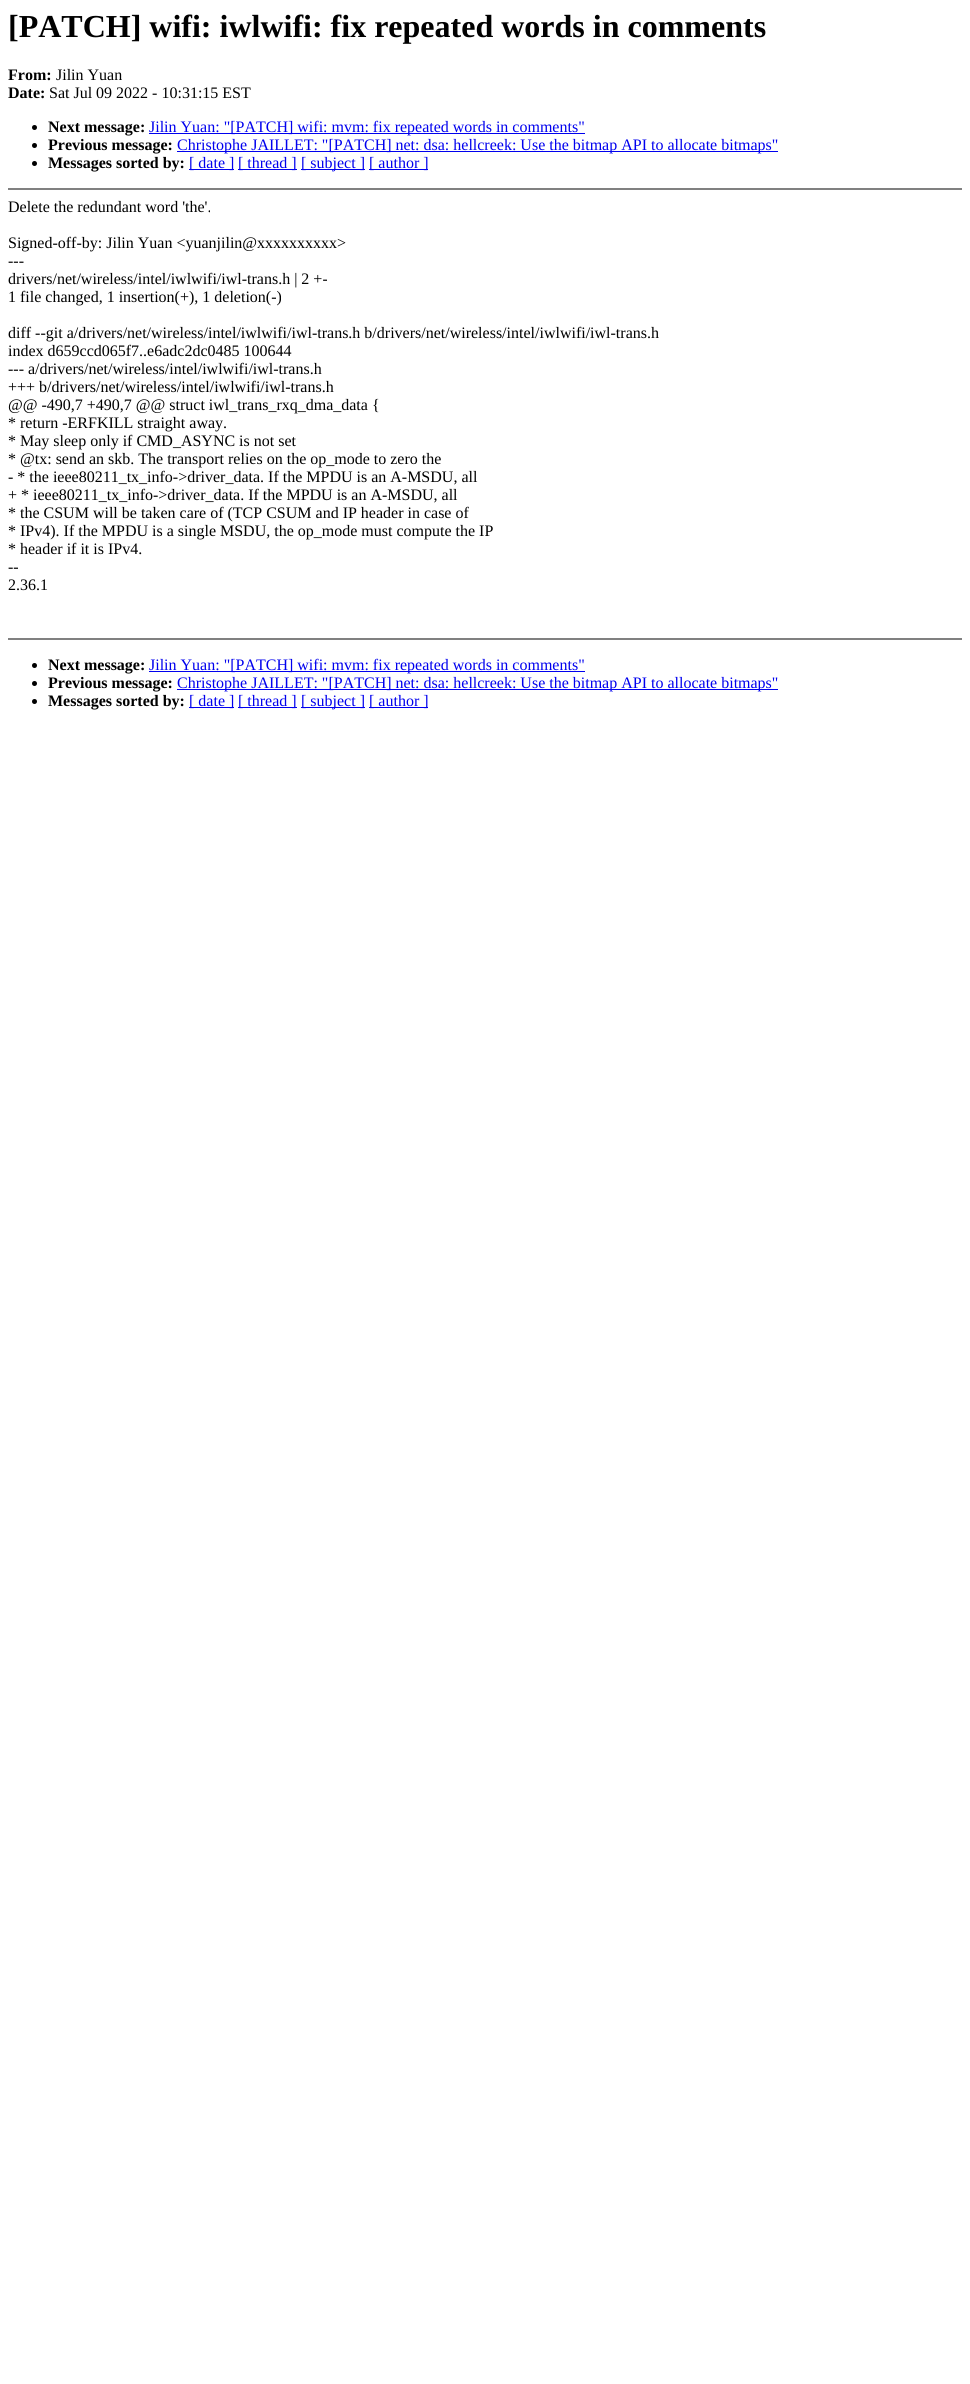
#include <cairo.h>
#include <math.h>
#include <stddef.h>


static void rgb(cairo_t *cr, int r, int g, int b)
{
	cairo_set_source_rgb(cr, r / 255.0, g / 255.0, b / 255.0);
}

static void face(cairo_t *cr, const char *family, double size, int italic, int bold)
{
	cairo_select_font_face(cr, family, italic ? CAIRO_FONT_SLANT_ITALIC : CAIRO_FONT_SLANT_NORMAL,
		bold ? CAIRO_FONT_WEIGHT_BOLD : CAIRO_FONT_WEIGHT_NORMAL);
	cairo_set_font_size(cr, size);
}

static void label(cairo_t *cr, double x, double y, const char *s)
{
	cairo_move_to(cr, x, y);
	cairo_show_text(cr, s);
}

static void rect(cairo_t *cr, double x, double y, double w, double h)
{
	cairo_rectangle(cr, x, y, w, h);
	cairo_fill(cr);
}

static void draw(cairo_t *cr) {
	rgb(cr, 255, 255, 255);
	cairo_paint(cr);
	face(cr, "Liberation Serif", 32, 0, 1);
	rgb(cr, 0, 0, 0);
	label(cr, 8, 37, "[PATCH] wifi: iwlwifi: fix repeated words in comments");
	face(cr, "Liberation Serif", 16, 0, 1);
	label(cr, 8, 80, "From:");
	face(cr, "Liberation Serif", 16, 0, 0);
	label(cr, 56, 80, "Jilin Yuan");
	face(cr, "Liberation Serif", 16, 0, 1);
	label(cr, 8, 98, "Date:");
	face(cr, "Liberation Serif", 16, 0, 0);
	label(cr, 49, 98, "Sat Jul 09 2022 - 10:31:15 EST");
	cairo_new_path(cr);
	cairo_arc(cr, 34.5, 127.5, 2.5, 0, 2 * M_PI);
	cairo_fill(cr);
	face(cr, "Liberation Serif", 16, 0, 1);
	label(cr, 48, 132, "Next message:");
	rgb(cr, 0, 0, 238);
	rect(cr, 149, 133, 436, 1);
	face(cr, "Liberation Serif", 16, 0, 0);
	label(cr, 149, 132, "Jilin Yuan: \"[PATCH] wifi: mvm: fix repeated words in comments\"");
	rgb(cr, 0, 0, 0);
	cairo_new_path(cr);
	cairo_arc(cr, 34.5, 145.5, 2.5, 0, 2 * M_PI);
	cairo_fill(cr);
	face(cr, "Liberation Serif", 16, 0, 1);
	label(cr, 48, 150, "Previous message:");
	rgb(cr, 0, 0, 238);
	rect(cr, 177, 151, 601, 1);
	face(cr, "Liberation Serif", 16, 0, 0);
	label(cr, 177, 150, "Christophe JAILLET: \"[PATCH] net: dsa: hellcreek: Use the bitmap API to allocate bitmaps\"");
	rgb(cr, 0, 0, 0);
	cairo_new_path(cr);
	cairo_arc(cr, 34.5, 163.5, 2.5, 0, 2 * M_PI);
	cairo_fill(cr);
	face(cr, "Liberation Serif", 16, 0, 1);
	label(cr, 48, 168, "Messages sorted by:");
	rgb(cr, 0, 0, 238);
	rect(cr, 189, 169, 45, 1);
	face(cr, "Liberation Serif", 16, 0, 0);
	label(cr, 189, 168, "[ date ]");
	rect(cr, 238, 169, 59, 1);
	label(cr, 238, 168, "[ thread ]");
	rect(cr, 301, 169, 64, 1);
	label(cr, 301, 168, "[ subject ]");
	rect(cr, 369, 169, 59, 1);
	label(cr, 369, 168, "[ author ]");
	rgb(cr, 128, 128, 128);
	rect(cr, 8, 188, 954, 2);
	rgb(cr, 0, 0, 0);
	label(cr, 8, 212, "Delete the redundant word 'the'.");
	label(cr, 8, 248, "Signed-off-by: Jilin Yuan <yuanjilin@xxxxxxxxxx>");
	label(cr, 8, 266, "---");
	label(cr, 8, 284, "drivers/net/wireless/intel/iwlwifi/iwl-trans.h | 2 +-");
	label(cr, 8, 302, "1 file changed, 1 insertion(+), 1 deletion(-)");
	label(cr, 8, 338, "diff --git a/drivers/net/wireless/intel/iwlwifi/iwl-trans.h b/drivers/net/wireless/intel/iwlwifi/iwl-trans.h");
	label(cr, 8, 356, "index d659ccd065f7..e6adc2dc0485 100644");
	label(cr, 8, 374, "--- a/drivers/net/wireless/intel/iwlwifi/iwl-trans.h");
	label(cr, 8, 392, "+++ b/drivers/net/wireless/intel/iwlwifi/iwl-trans.h");
	label(cr, 8, 410, "@@ -490,7 +490,7 @@ struct iwl_trans_rxq_dma_data {");
	label(cr, 8, 428, "* return -ERFKILL straight away.");
	label(cr, 8, 446, "* May sleep only if CMD_ASYNC is not set");
	label(cr, 8, 464, "* @tx: send an skb. The transport relies on the op_mode to zero the");
	label(cr, 8, 482, "- * the ieee80211_tx_info->driver_data. If the MPDU is an A-MSDU, all");
	label(cr, 8, 500, "+ * ieee80211_tx_info->driver_data. If the MPDU is an A-MSDU, all");
	label(cr, 8, 518, "* the CSUM will be taken care of (TCP CSUM and IP header in case of");
	label(cr, 8, 536, "* IPv4). If the MPDU is a single MSDU, the op_mode must compute the IP");
	label(cr, 8, 554, "* header if it is IPv4.");
	label(cr, 8, 572, "--");
	label(cr, 8, 590, "2.36.1");
	rgb(cr, 128, 128, 128);
	rect(cr, 8, 638, 954, 2);
	rgb(cr, 0, 0, 0);
	cairo_new_path(cr);
	cairo_arc(cr, 34.5, 665.5, 2.5, 0, 2 * M_PI);
	cairo_fill(cr);
	face(cr, "Liberation Serif", 16, 0, 1);
	label(cr, 48, 670, "Next message:");
	rgb(cr, 0, 0, 238);
	rect(cr, 149, 671, 436, 1);
	face(cr, "Liberation Serif", 16, 0, 0);
	label(cr, 149, 670, "Jilin Yuan: \"[PATCH] wifi: mvm: fix repeated words in comments\"");
	rgb(cr, 0, 0, 0);
	cairo_new_path(cr);
	cairo_arc(cr, 34.5, 683.5, 2.5, 0, 2 * M_PI);
	cairo_fill(cr);
	face(cr, "Liberation Serif", 16, 0, 1);
	label(cr, 48, 688, "Previous message:");
	rgb(cr, 0, 0, 238);
	rect(cr, 177, 689, 601, 1);
	face(cr, "Liberation Serif", 16, 0, 0);
	label(cr, 177, 688, "Christophe JAILLET: \"[PATCH] net: dsa: hellcreek: Use the bitmap API to allocate bitmaps\"");
	rgb(cr, 0, 0, 0);
	cairo_new_path(cr);
	cairo_arc(cr, 34.5, 701.5, 2.5, 0, 2 * M_PI);
	cairo_fill(cr);
	face(cr, "Liberation Serif", 16, 0, 1);
	label(cr, 48, 706, "Messages sorted by:");
	rgb(cr, 0, 0, 238);
	rect(cr, 189, 707, 45, 1);
	face(cr, "Liberation Serif", 16, 0, 0);
	label(cr, 189, 706, "[ date ]");
	rect(cr, 238, 707, 59, 1);
	label(cr, 238, 706, "[ thread ]");
	rect(cr, 301, 707, 64, 1);
	label(cr, 301, 706, "[ subject ]");
	rect(cr, 369, 707, 59, 1);
	label(cr, 369, 706, "[ author ]");
}

int main(void) {
	cairo_surface_t *surface = cairo_image_surface_create(CAIRO_FORMAT_RGB24, 970, 2384);
	cairo_t *cr = cairo_create(surface);
	cairo_font_options_t *options = cairo_font_options_create();
	cairo_font_options_set_hint_metrics(options, CAIRO_HINT_METRICS_OFF);
	cairo_font_options_set_hint_style(options, CAIRO_HINT_STYLE_NONE);
	cairo_set_font_options(cr, options);
	cairo_set_miter_limit(cr, 4);
	draw(cr);
	cairo_surface_write_to_png(surface, "render.png");
	cairo_font_options_destroy(options);
	cairo_destroy(cr);
	cairo_surface_destroy(surface);
	return 0;
}
